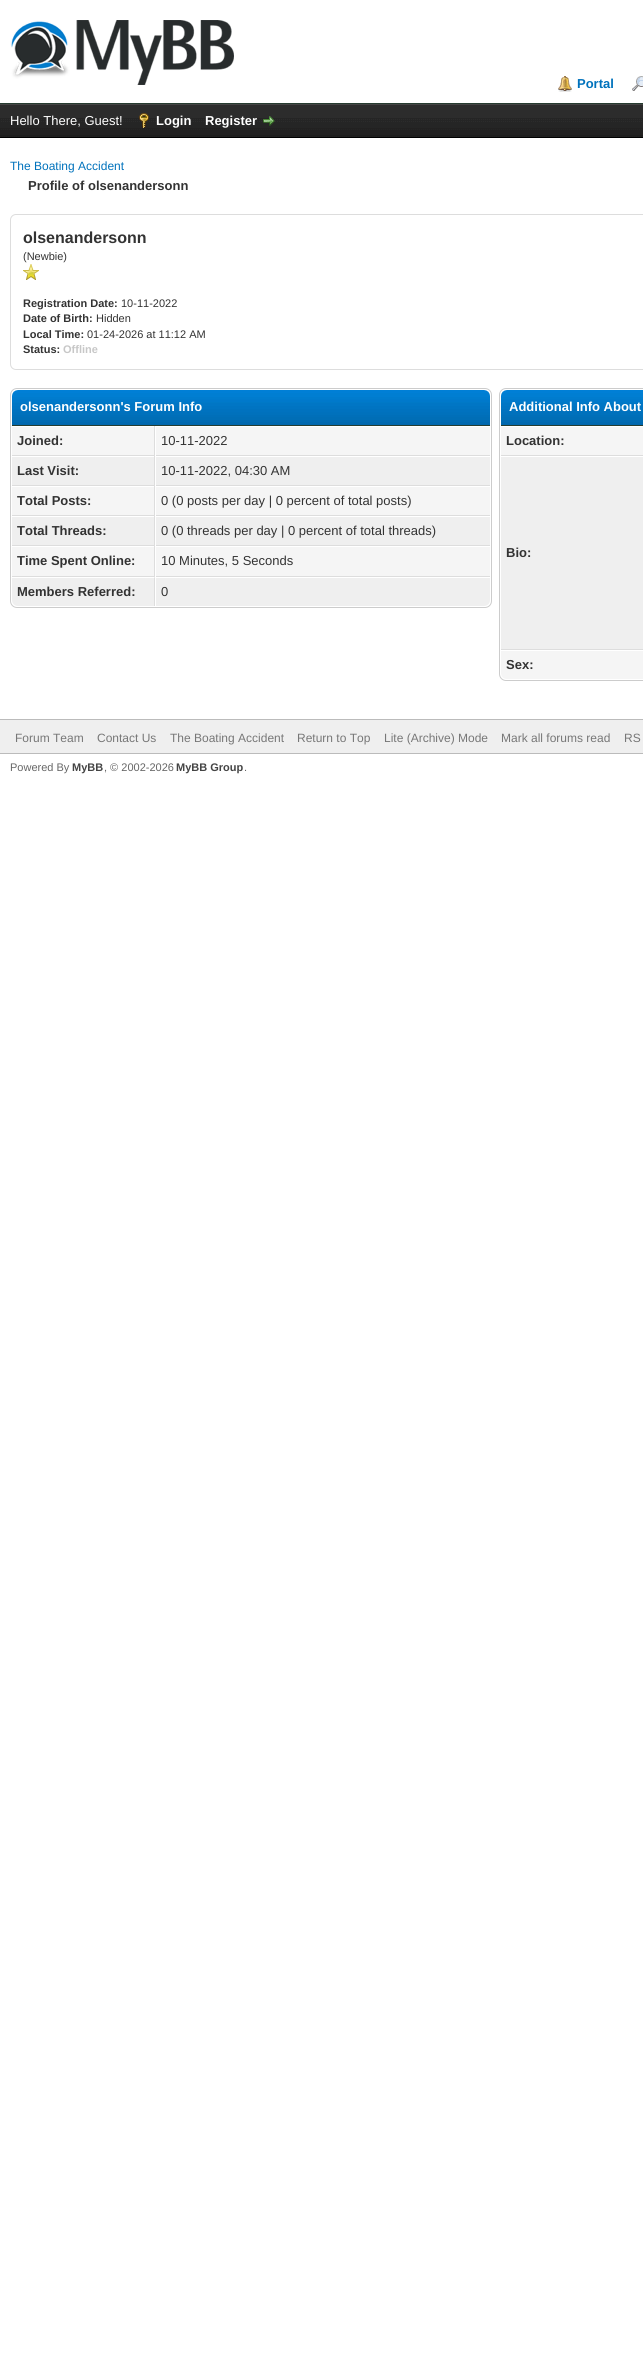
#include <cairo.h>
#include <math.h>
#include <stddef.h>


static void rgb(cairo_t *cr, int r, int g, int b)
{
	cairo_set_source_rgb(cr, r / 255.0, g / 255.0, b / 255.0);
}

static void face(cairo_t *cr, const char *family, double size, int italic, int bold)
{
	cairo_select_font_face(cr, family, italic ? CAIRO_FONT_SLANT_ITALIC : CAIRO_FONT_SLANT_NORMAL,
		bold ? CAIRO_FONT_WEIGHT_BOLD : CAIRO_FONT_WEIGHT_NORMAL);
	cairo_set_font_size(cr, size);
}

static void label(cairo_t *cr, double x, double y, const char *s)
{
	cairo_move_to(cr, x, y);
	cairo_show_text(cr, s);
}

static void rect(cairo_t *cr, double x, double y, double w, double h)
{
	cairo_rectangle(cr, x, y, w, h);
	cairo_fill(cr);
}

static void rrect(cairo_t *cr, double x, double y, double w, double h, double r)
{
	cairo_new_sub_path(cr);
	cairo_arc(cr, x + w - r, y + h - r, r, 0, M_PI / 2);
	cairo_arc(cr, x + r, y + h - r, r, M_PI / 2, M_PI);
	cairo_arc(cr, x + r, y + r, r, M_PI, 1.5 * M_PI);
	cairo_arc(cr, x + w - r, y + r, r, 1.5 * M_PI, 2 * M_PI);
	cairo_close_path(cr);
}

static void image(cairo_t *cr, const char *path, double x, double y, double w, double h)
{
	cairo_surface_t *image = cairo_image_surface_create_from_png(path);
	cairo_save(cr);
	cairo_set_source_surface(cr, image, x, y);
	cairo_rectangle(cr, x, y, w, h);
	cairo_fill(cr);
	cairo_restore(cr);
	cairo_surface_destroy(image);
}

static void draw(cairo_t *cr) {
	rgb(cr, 255, 255, 255);
	cairo_paint(cr);
	rgb(cr, 38, 60, 48);
	rect(cr, 0, 103, 643, 1);
	image(cr, "image0.png", 10, 20, 224, 65);
	image(cr, "image1.png", 558, 76, 14, 16);
	face(cr, "Liberation Sans", 13, 0, 1);
	rgb(cr, 0, 114, 188);
	label(cr, 577, 88, "Portal");
	image(cr, "image2.png", 632, 76, 11, 15);
	image(cr, "image3.png", 0, 105, 643, 32);
	rgb(cr, 68, 68, 68);
	rect(cr, 0, 104, 643, 1);
	rgb(cr, 0, 0, 0);
	rect(cr, 0, 137, 643, 1);
	face(cr, "Liberation Sans", 13, 0, 0);
	rgb(cr, 255, 255, 255);
	label(cr, 10, 125, "Hello There, Guest!");
	image(cr, "image4.png", 139, 113, 10, 15);
	face(cr, "Liberation Sans", 13, 0, 1);
	label(cr, 156, 125, "Login");
	label(cr, 205, 125, "Register");
	image(cr, "image5.png", 263, 116, 12, 10);
	face(cr, "Liberation Sans", 12, 0, 0);
	rgb(cr, 0, 114, 188);
	label(cr, 10, 170, "The Boating Accident");
	face(cr, "Liberation Sans", 13, 0, 1);
	rgb(cr, 51, 51, 51);
	label(cr, 28, 190, "Profile of olsenandersonn");
	rrect(cr, 10.5, 214.5, 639, 155, 5.5);
	rgb(cr, 221, 221, 221);
	cairo_set_line_width(cr, 1);
	cairo_stroke(cr);
	face(cr, "Liberation Sans", 16, 0, 1);
	rgb(cr, 51, 51, 51);
	label(cr, 23, 243, "olsenandersonn");
	face(cr, "Liberation Sans", 11, 0, 0);
	label(cr, 23, 260, "(Newbie)");
	image(cr, "image6.png", 23, 264, 16, 16);
	face(cr, "Liberation Sans", 11, 0, 1);
	label(cr, 23, 307, "Registration Date:");
	face(cr, "Liberation Sans", 11, 0, 0);
	label(cr, 121, 307, "10-11-2022");
	face(cr, "Liberation Sans", 11, 0, 1);
	label(cr, 23, 322, "Date of Birth:");
	face(cr, "Liberation Sans", 11, 0, 0);
	label(cr, 96, 322, "Hidden");
	face(cr, "Liberation Sans", 11, 0, 1);
	label(cr, 23, 338, "Local Time:");
	face(cr, "Liberation Sans", 11, 0, 0);
	label(cr, 87, 338, "01-24-2026 at 11:12 AM");
	face(cr, "Liberation Sans", 11, 0, 1);
	label(cr, 23, 353, "Status:");
	rgb(cr, 199, 199, 199);
	label(cr, 63, 353, "Offline");
	rrect(cr, 10.5, 388.5, 481, 219, 6.5);
	rgb(cr, 204, 204, 204);
	cairo_stroke(cr);
	image(cr, "image7.png", 12, 390, 478, 35);
	rgb(cr, 38, 60, 48);
	rect(cr, 12, 425, 478, 1);
	face(cr, "Liberation Sans", 13, 0, 1);
	rgb(cr, 255, 255, 255);
	label(cr, 20, 411, "olsenandersonn's Forum Info");
	rgb(cr, 245, 245, 245);
	rect(cr, 12, 427, 142, 28);
	rgb(cr, 221, 221, 221);
	rect(cr, 154, 426, 1, 151);
	rect(cr, 12, 455, 478, 1);
	rgb(cr, 51, 51, 51);
	label(cr, 17, 445, "Joined:");
	rgb(cr, 245, 245, 245);
	rect(cr, 156, 427, 334, 28);
	rgb(cr, 255, 255, 255);
	rect(cr, 155, 455, 1, 1);
	face(cr, "Liberation Sans", 13, 0, 0);
	rgb(cr, 51, 51, 51);
	label(cr, 161, 445, "10-11-2022");
	rgb(cr, 239, 239, 239);
	rect(cr, 12, 457, 142, 28);
	rgb(cr, 221, 221, 221);
	rect(cr, 12, 485, 478, 1);
	face(cr, "Liberation Sans", 13, 0, 1);
	rgb(cr, 51, 51, 51);
	label(cr, 17, 475, "Last Visit:");
	rgb(cr, 239, 239, 239);
	rect(cr, 156, 457, 334, 28);
	rgb(cr, 255, 255, 255);
	rect(cr, 155, 485, 1, 1);
	face(cr, "Liberation Sans", 13, 0, 0);
	rgb(cr, 51, 51, 51);
	label(cr, 161, 475, "10-11-2022, 04:30 AM");
	rgb(cr, 245, 245, 245);
	rect(cr, 12, 487, 142, 28);
	rgb(cr, 221, 221, 221);
	rect(cr, 12, 515, 478, 1);
	face(cr, "Liberation Sans", 13, 0, 1);
	rgb(cr, 51, 51, 51);
	label(cr, 17, 505, "Total Posts:");
	rgb(cr, 245, 245, 245);
	rect(cr, 156, 487, 334, 28);
	rgb(cr, 255, 255, 255);
	rect(cr, 155, 515, 1, 1);
	face(cr, "Liberation Sans", 13, 0, 0);
	rgb(cr, 51, 51, 51);
	label(cr, 161, 505, "0 (0 posts per day | 0 percent of total posts)");
	rgb(cr, 239, 239, 239);
	rect(cr, 12, 517, 142, 28);
	rgb(cr, 221, 221, 221);
	rect(cr, 12, 545, 478, 1);
	face(cr, "Liberation Sans", 13, 0, 1);
	rgb(cr, 51, 51, 51);
	label(cr, 17, 535, "Total Threads:");
	rgb(cr, 239, 239, 239);
	rect(cr, 156, 517, 334, 28);
	rgb(cr, 255, 255, 255);
	rect(cr, 155, 545, 1, 1);
	face(cr, "Liberation Sans", 13, 0, 0);
	rgb(cr, 51, 51, 51);
	label(cr, 161, 535, "0 (0 threads per day | 0 percent of total threads)");
	rgb(cr, 245, 245, 245);
	rect(cr, 12, 547, 142, 29);
	rgb(cr, 221, 221, 221);
	rect(cr, 12, 576, 478, 1);
	face(cr, "Liberation Sans", 13, 0, 1);
	rgb(cr, 51, 51, 51);
	label(cr, 17, 565, "Time Spent Online:");
	rgb(cr, 245, 245, 245);
	rect(cr, 156, 547, 334, 29);
	rgb(cr, 255, 255, 255);
	rect(cr, 155, 576, 1, 1);
	face(cr, "Liberation Sans", 13, 0, 0);
	rgb(cr, 51, 51, 51);
	label(cr, 161, 565, "10 Minutes, 5 Seconds");
	rgb(cr, 239, 239, 239);
	cairo_new_path(cr);
	cairo_move_to(cr, 12, 577);
	cairo_line_to(cr, 155, 577);
	cairo_line_to(cr, 155, 606);
	cairo_line_to(cr, 18, 606);
	cairo_curve_to(cr, 14.5, 606, 12, 603.5, 12, 600);
	cairo_close_path(cr);
	cairo_fill(cr);
	rgb(cr, 255, 255, 255);
	cairo_new_path(cr);
	cairo_move_to(cr, 12, 577);
	cairo_line_to(cr, 12, 578);
	cairo_line_to(cr, 154, 578);
	cairo_line_to(cr, 155, 577);
	cairo_close_path(cr);
	cairo_fill(cr);
	rgb(cr, 221, 221, 221);
	cairo_new_path(cr);
	cairo_move_to(cr, 155, 577);
	cairo_line_to(cr, 154, 578);
	cairo_line_to(cr, 154, 606);
	cairo_line_to(cr, 155, 606);
	cairo_close_path(cr);
	cairo_fill(cr);
	face(cr, "Liberation Sans", 13, 0, 1);
	rgb(cr, 51, 51, 51);
	label(cr, 17, 596, "Members Referred:");
	rgb(cr, 239, 239, 239);
	cairo_new_path(cr);
	cairo_move_to(cr, 155, 577);
	cairo_line_to(cr, 490, 577);
	cairo_line_to(cr, 490, 600);
	cairo_curve_to(cr, 490, 603.5, 487.5, 606, 484, 606);
	cairo_line_to(cr, 155, 606);
	cairo_close_path(cr);
	cairo_fill(cr);
	rgb(cr, 255, 255, 255);
	rect(cr, 155, 577, 335, 1);
	rect(cr, 155, 577, 1, 29);
	face(cr, "Liberation Sans", 13, 0, 0);
	rgb(cr, 51, 51, 51);
	label(cr, 161, 596, "0");
	rrect(cr, 499.5, 388.5, 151, 292, 6.5);
	rgb(cr, 204, 204, 204);
	cairo_stroke(cr);
	image(cr, "image8.png", 501, 390, 142, 35);
	rgb(cr, 38, 60, 48);
	rect(cr, 501, 425, 142, 1);
	face(cr, "Liberation Sans", 13, 0, 1);
	rgb(cr, 255, 255, 255);
	label(cr, 509, 411, "Additional Info About");
	rgb(cr, 245, 245, 245);
	rect(cr, 501, 427, 142, 28);
	rgb(cr, 221, 221, 221);
	rect(cr, 501, 455, 142, 1);
	rgb(cr, 51, 51, 51);
	label(cr, 506, 445, "Location:");
	rgb(cr, 239, 239, 239);
	rect(cr, 501, 457, 142, 192);
	rgb(cr, 221, 221, 221);
	rect(cr, 501, 649, 142, 1);
	rgb(cr, 51, 51, 51);
	label(cr, 506, 557, "Bio:");
	rgb(cr, 245, 245, 245);
	cairo_new_path(cr);
	cairo_move_to(cr, 501, 650);
	cairo_line_to(cr, 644, 650);
	cairo_line_to(cr, 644, 679);
	cairo_line_to(cr, 507, 679);
	cairo_curve_to(cr, 503.5, 679, 501, 676.5, 501, 673);
	cairo_close_path(cr);
	cairo_fill(cr);
	rgb(cr, 255, 255, 255);
	cairo_new_path(cr);
	cairo_move_to(cr, 501, 650);
	cairo_line_to(cr, 501, 651);
	cairo_line_to(cr, 643, 651);
	cairo_line_to(cr, 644, 650);
	cairo_close_path(cr);
	cairo_fill(cr);
	rgb(cr, 51, 51, 51);
	label(cr, 506, 669, "Sex:");
	rgb(cr, 239, 239, 239);
	rect(cr, 0, 720, 643, 33);
	rgb(cr, 187, 187, 187);
	rect(cr, 0, 719, 643, 1);
	rect(cr, 0, 753, 643, 1);
	face(cr, "Liberation Sans", 12, 0, 0);
	rgb(cr, 119, 119, 119);
	label(cr, 15, 742, "Forum Team");
	label(cr, 97, 742, "Contact Us");
	label(cr, 170, 742, "The Boating Accident");
	label(cr, 297, 742, "Return to Top");
	label(cr, 384, 742, "Lite (Archive) Mode");
	label(cr, 501, 742, "Mark all forums read");
	label(cr, 624, 742, "RS");
	face(cr, "Liberation Sans", 11, 0, 0);
	rgb(cr, 102, 102, 102);
	label(cr, 10, 771, "Powered By");
	face(cr, "Liberation Sans", 11, 0, 1);
	rgb(cr, 68, 68, 68);
	label(cr, 72, 771, "MyBB");
	face(cr, "Liberation Sans", 11, 0, 0);
	rgb(cr, 102, 102, 102);
	label(cr, 104, 771, ", © 2002-2026");
	face(cr, "Liberation Sans", 11, 0, 1);
	rgb(cr, 68, 68, 68);
	label(cr, 176, 771, "MyBB Group");
	face(cr, "Liberation Sans", 11, 0, 0);
	rgb(cr, 102, 102, 102);
	label(cr, 244, 771, ".");
}

int main(void) {
	cairo_surface_t *surface = cairo_image_surface_create(CAIRO_FORMAT_RGB24, 643, 2373);
	cairo_t *cr = cairo_create(surface);
	cairo_font_options_t *options = cairo_font_options_create();
	cairo_font_options_set_hint_metrics(options, CAIRO_HINT_METRICS_OFF);
	cairo_font_options_set_hint_style(options, CAIRO_HINT_STYLE_NONE);
	cairo_set_font_options(cr, options);
	cairo_set_miter_limit(cr, 4);
	draw(cr);
	cairo_surface_write_to_png(surface, "render.png");
	cairo_font_options_destroy(options);
	cairo_destroy(cr);
	cairo_surface_destroy(surface);
	return 0;
}
